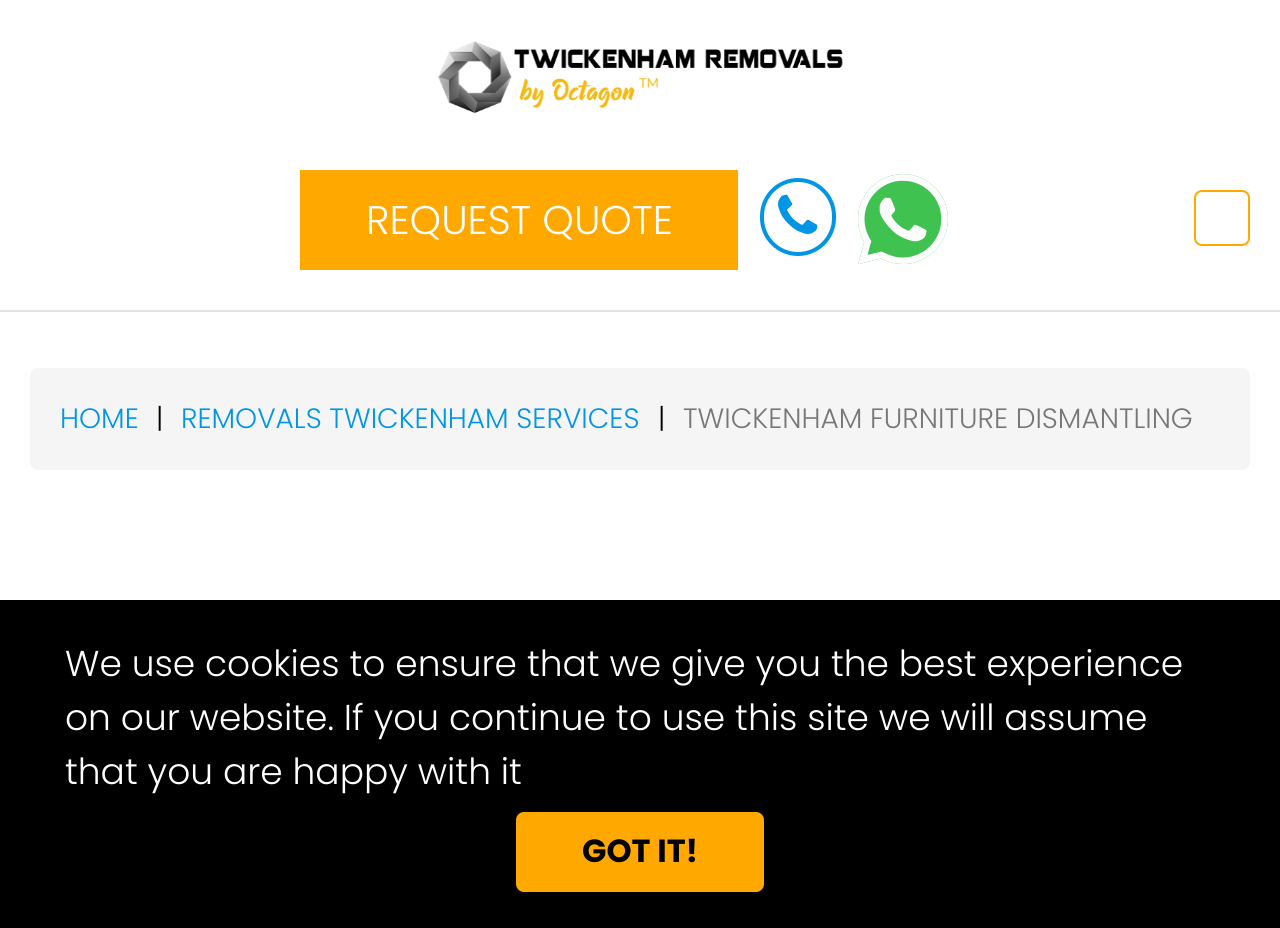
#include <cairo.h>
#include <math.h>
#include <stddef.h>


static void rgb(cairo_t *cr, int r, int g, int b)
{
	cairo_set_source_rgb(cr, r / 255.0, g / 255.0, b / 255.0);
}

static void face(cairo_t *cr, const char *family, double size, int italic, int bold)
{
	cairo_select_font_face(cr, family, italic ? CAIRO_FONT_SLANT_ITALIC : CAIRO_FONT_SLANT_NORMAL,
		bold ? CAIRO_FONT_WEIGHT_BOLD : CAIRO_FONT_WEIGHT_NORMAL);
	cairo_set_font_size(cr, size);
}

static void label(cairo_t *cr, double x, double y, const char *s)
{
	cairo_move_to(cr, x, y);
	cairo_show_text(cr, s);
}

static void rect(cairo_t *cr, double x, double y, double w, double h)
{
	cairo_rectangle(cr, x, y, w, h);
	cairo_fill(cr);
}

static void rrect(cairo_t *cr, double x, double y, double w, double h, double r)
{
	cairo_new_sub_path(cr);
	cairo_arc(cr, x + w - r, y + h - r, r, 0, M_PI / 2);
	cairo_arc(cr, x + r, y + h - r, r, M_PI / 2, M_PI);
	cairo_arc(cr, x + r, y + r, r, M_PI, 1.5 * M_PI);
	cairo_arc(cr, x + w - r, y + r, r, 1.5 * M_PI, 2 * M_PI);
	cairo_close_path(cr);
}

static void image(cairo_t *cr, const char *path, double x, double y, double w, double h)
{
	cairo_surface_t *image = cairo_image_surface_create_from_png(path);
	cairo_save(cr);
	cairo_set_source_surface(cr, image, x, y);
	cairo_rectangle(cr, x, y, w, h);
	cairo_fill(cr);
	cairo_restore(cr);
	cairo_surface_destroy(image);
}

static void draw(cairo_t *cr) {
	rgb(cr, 255, 255, 255);
	cairo_paint(cr);
	image(cr, "image0.png", 438, 41, 405, 73);
	rgb(cr, 255, 169, 0);
	rect(cr, 300, 170, 438, 100);
	face(cr, "Poppins Light", 40, 0, 0);
	rgb(cr, 255, 255, 255);
	label(cr, 366, 234, "REQUEST QUOTE");
	rrect(cr, 762, 180, 72, 74, 36);
	rgb(cr, 0, 149, 229);
	cairo_set_line_width(cr, 4);
	cairo_stroke(cr);
	image(cr, "image1.png", 778, 194, 40, 40);
	image(cr, "image2.png", 858, 174, 90, 90);
	rrect(cr, 1195, 191, 54, 54, 7);
	rgb(cr, 255, 169, 0);
	cairo_set_line_width(cr, 2);
	cairo_stroke(cr);
	rgb(cr, 227, 228, 228);
	rect(cr, 0, 310, 1280, 2);
	rgb(cr, 245, 245, 245);
	rrect(cr, 30, 368, 1220, 102, 8);
	cairo_fill(cr);
	face(cr, "Poppins Light", 28, 0, 0);
	rgb(cr, 0, 149, 229);
	label(cr, 60, 428, "HOME");
	rgb(cr, 0, 0, 0);
	label(cr, 156, 428, "|");
	rgb(cr, 0, 149, 229);
	label(cr, 181, 428, "REMOVALS TWICKENHAM SERVICES");
	rgb(cr, 0, 0, 0);
	label(cr, 658, 428, "|");
	rgb(cr, 119, 119, 119);
	label(cr, 683, 428, "TWICKENHAM FURNITURE DISMANTLING");
	rgb(cr, 0, 0, 0);
	rect(cr, 0, 600, 1280, 328);
	face(cr, "Poppins Light", 36, 0, 0);
	rgb(cr, 255, 255, 255);
	label(cr, 65, 676, "We use cookies to ensure that we give you the best experience");
	label(cr, 65, 730, "on our website. If you continue to use this site we will assume");
	label(cr, 65, 784, "that you are happy with it");
	rgb(cr, 255, 169, 0);
	rrect(cr, 516, 812, 248, 80, 8);
	cairo_fill(cr);
	face(cr, "Poppins", 32, 0, 1);
	rgb(cr, 0, 0, 0);
	label(cr, 582, 862, "GOT IT!");
}

int main(void) {
	cairo_surface_t *surface = cairo_image_surface_create(CAIRO_FORMAT_RGB24, 1280, 928);
	cairo_t *cr = cairo_create(surface);
	cairo_font_options_t *options = cairo_font_options_create();
	cairo_font_options_set_hint_metrics(options, CAIRO_HINT_METRICS_OFF);
	cairo_font_options_set_hint_style(options, CAIRO_HINT_STYLE_NONE);
	cairo_set_font_options(cr, options);
	cairo_set_miter_limit(cr, 4);
	draw(cr);
	cairo_surface_write_to_png(surface, "render.png");
	cairo_font_options_destroy(options);
	cairo_destroy(cr);
	cairo_surface_destroy(surface);
	return 0;
}
